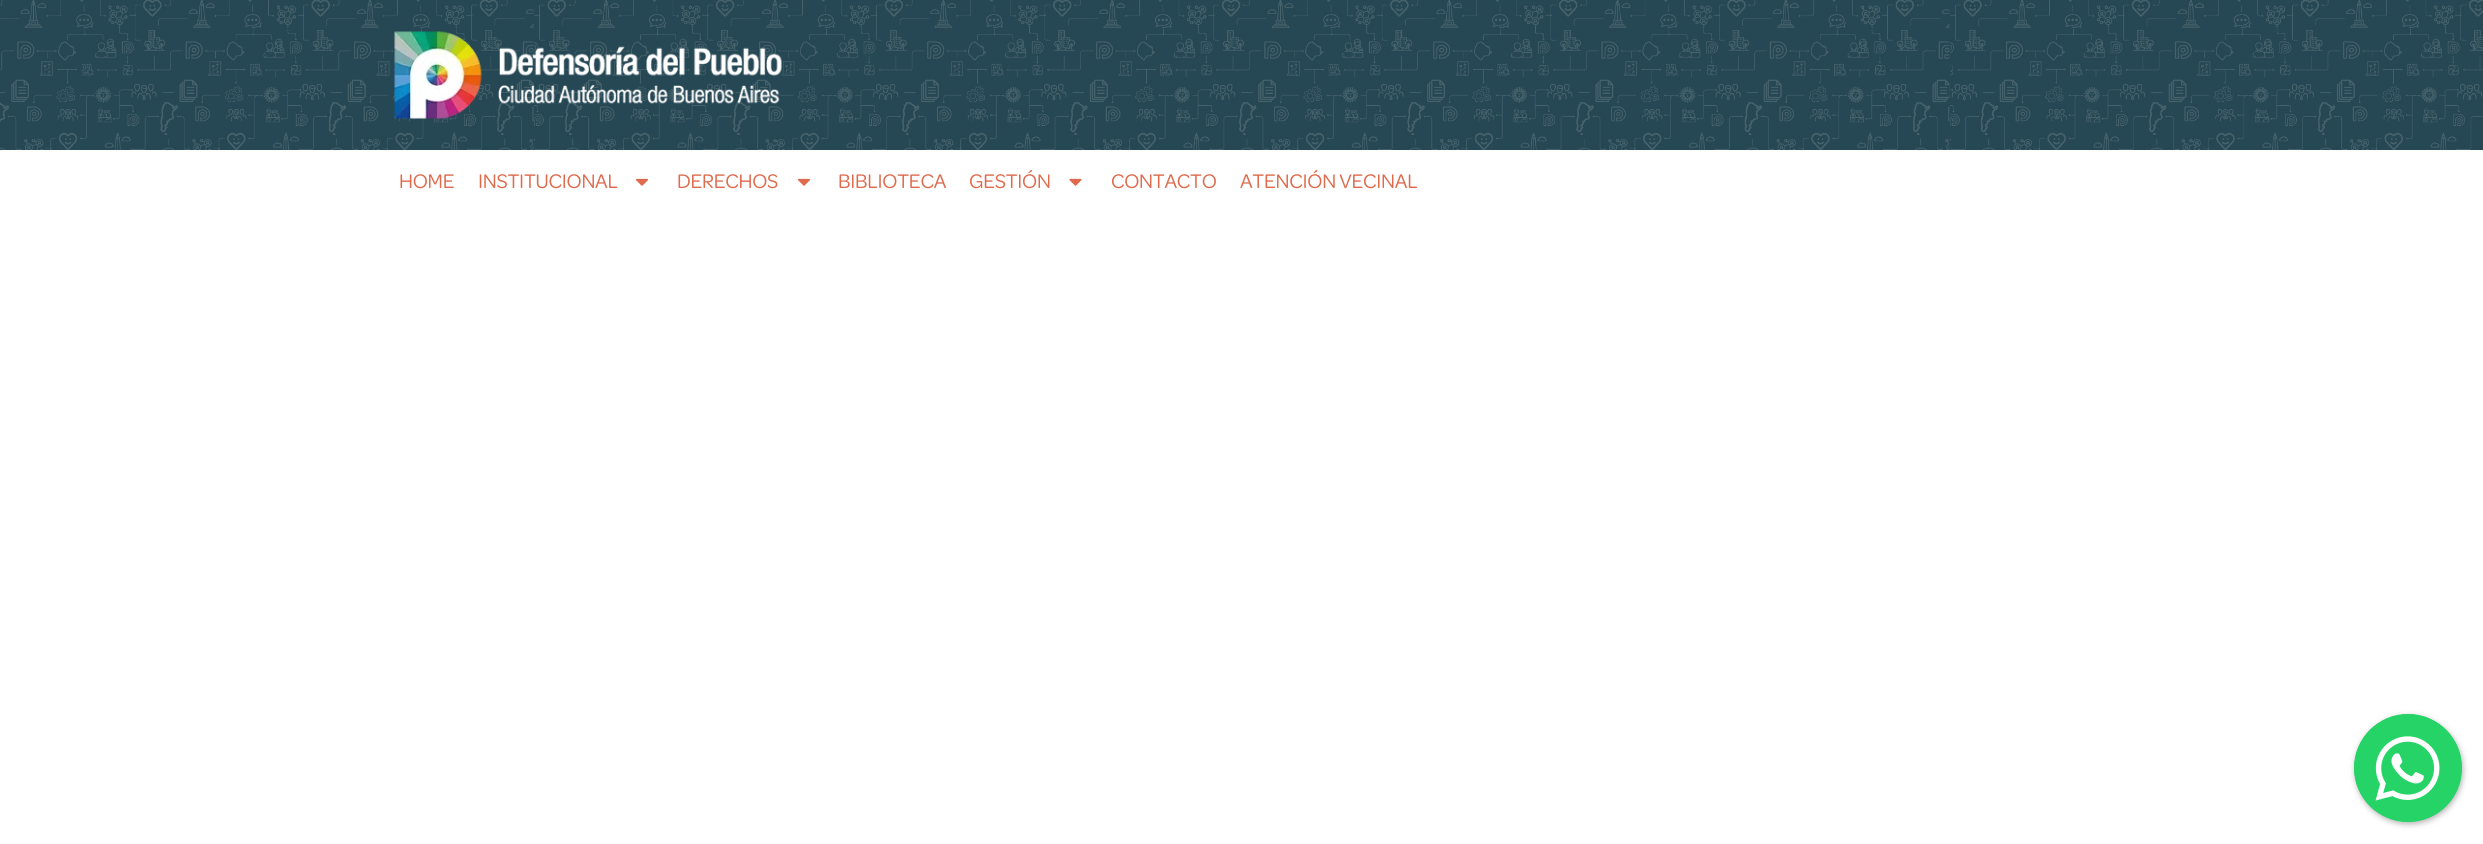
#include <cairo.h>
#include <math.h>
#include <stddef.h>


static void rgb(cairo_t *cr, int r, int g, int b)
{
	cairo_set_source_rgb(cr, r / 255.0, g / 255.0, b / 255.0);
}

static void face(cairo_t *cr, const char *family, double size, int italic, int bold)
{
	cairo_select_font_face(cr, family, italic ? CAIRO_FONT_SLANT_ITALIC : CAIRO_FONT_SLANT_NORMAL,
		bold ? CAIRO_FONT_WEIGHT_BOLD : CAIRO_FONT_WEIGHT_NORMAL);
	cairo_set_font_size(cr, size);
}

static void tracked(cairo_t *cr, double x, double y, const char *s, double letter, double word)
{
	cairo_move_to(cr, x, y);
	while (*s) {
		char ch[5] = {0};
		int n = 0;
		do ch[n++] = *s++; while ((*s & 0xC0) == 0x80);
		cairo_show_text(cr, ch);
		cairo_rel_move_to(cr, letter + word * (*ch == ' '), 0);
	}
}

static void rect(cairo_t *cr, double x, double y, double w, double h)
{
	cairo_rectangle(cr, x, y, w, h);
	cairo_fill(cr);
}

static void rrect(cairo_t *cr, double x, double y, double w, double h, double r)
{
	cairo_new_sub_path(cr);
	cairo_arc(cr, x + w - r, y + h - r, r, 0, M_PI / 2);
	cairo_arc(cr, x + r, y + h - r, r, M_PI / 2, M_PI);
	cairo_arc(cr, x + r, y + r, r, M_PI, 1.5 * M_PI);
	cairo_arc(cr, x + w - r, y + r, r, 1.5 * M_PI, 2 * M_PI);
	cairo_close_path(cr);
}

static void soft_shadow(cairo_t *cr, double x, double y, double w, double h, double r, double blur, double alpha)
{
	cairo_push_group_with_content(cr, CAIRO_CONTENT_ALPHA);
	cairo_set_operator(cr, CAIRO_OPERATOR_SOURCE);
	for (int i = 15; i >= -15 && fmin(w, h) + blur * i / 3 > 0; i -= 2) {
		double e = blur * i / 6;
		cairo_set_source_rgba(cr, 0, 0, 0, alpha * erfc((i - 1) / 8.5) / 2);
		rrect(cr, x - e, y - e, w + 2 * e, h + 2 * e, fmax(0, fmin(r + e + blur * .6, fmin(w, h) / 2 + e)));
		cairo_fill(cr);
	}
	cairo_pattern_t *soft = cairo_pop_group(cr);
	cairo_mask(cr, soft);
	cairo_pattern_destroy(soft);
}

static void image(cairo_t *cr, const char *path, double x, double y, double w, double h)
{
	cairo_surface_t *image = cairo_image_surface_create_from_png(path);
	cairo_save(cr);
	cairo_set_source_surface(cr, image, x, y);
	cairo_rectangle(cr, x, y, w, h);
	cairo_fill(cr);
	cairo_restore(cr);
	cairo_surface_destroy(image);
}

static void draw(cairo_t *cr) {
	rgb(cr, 255, 255, 255);
	cairo_paint(cr);
	rgb(cr, 38, 71, 84);
	rect(cr, 0, 0, 2483, 150);
	image(cr, "image0.png", 0, 0, 2483, 150);
	image(cr, "image1.png", 394, 31, 388, 88);
	face(cr, "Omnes", 21, 0, 0);
	rgb(cr, 223, 107, 78);
	tracked(cr, 399, 188, "HOME", -0.25, 0);
	tracked(cr, 478, 188, "INSTITUCIONAL", -0.25, 0);
	image(cr, "image2.png", 635, 178, 14, 8);
	tracked(cr, 677, 188, "DERECHOS", -0.25, 0);
	image(cr, "image2.png", 797, 178, 14, 8);
	tracked(cr, 838, 188, "BIBLIOTECA", -0.25, 0);
	tracked(cr, 969, 188, "GESTIÓN", -0.25, 0);
	image(cr, "image3.png", 1069, 178, 13, 8);
	tracked(cr, 1111, 188, "CONTACTO", -0.25, 0);
	tracked(cr, 1240, 188, "ATENCIÓN VECINAL", -0.25, 0);
	rgb(cr, 60, 60, 60);
	soft_shadow(cr, 2355, 716, 108, 108, 54, 3, 0.4);
	rgb(cr, 37, 211, 102);
	cairo_arc(cr, 2408, 768, 54, 0, 2 * M_PI);
	cairo_fill(cr);
	image(cr, "image4.png", 2354, 714, 108, 108);
}

int main(void) {
	cairo_surface_t *surface = cairo_image_surface_create(CAIRO_FORMAT_RGB24, 2483, 844);
	cairo_t *cr = cairo_create(surface);
	cairo_font_options_t *options = cairo_font_options_create();
	cairo_font_options_set_hint_metrics(options, CAIRO_HINT_METRICS_OFF);
	cairo_font_options_set_hint_style(options, CAIRO_HINT_STYLE_NONE);
	cairo_set_font_options(cr, options);
	cairo_set_miter_limit(cr, 4);
	draw(cr);
	cairo_surface_write_to_png(surface, "render.png");
	cairo_font_options_destroy(options);
	cairo_destroy(cr);
	cairo_surface_destroy(surface);
	return 0;
}
